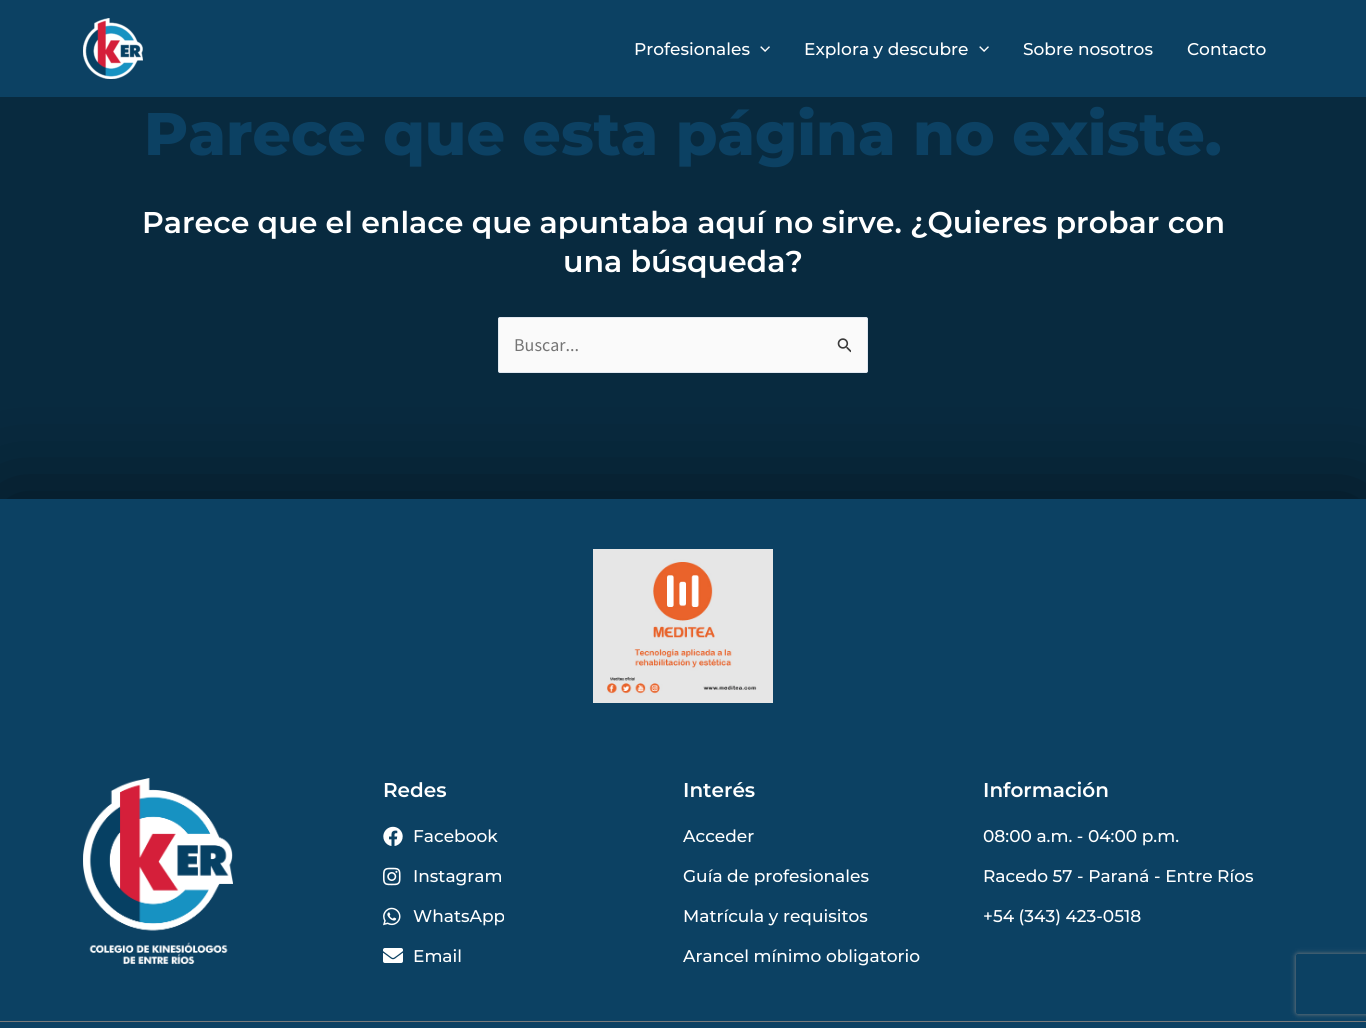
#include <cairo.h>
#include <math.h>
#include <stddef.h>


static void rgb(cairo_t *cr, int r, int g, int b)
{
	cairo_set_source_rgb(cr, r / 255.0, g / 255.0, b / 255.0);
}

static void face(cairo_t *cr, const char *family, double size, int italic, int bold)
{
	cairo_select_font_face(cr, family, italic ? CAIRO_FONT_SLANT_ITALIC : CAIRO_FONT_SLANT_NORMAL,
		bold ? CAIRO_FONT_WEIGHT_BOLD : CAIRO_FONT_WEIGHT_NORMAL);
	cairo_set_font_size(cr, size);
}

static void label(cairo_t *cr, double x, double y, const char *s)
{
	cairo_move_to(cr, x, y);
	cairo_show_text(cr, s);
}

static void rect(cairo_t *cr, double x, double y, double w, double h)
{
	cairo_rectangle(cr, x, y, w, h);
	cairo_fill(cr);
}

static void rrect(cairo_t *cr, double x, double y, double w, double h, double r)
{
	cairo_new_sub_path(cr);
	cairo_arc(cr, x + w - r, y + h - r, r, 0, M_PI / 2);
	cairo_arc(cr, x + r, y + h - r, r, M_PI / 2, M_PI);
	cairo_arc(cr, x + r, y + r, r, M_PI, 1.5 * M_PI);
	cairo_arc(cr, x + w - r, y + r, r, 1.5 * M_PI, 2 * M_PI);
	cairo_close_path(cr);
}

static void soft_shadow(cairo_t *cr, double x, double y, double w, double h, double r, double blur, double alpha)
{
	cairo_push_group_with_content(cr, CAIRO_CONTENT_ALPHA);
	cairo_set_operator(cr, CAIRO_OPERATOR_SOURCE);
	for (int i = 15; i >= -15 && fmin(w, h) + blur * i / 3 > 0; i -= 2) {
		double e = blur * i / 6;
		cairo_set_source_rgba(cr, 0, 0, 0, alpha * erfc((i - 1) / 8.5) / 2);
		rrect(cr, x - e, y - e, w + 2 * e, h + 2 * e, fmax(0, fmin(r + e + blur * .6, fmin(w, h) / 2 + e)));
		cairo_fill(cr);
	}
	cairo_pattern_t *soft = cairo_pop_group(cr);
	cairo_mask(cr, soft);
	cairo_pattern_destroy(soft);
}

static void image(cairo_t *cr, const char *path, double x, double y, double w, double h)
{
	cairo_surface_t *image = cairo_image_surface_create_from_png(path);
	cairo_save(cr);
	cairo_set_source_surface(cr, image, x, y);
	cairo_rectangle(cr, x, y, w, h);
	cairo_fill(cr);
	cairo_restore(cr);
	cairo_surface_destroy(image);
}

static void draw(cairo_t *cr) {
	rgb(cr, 8, 42, 63);
	cairo_paint(cr);
	rgb(cr, 12, 65, 99);
	rect(cr, 0, 0, 1366, 97);
	image(cr, "image0.png", 83, 18, 60, 61);
	face(cr, "Montserrat Medium", 17, 0, 0);
	rgb(cr, 255, 255, 255);
	label(cr, 634, 55, "Profesionales");
	image(cr, "image1.png", 760, 46, 10, 6);
	label(cr, 804, 55, "Explora y descubre");
	image(cr, "image1.png", 979, 46, 10, 6);
	label(cr, 1023, 55, "Sobre nosotros");
	label(cr, 1187, 55, "Contacto");
	face(cr, "Montserrat ExtraBold", 60, 0, 0);
	rgb(cr, 12, 65, 99);
	label(cr, 144, 155, "Parece que esta página no existe.");
	face(cr, "Montserrat SemiBold", 30, 0, 0);
	rgb(cr, 255, 255, 255);
	label(cr, 142, 233, "Parece que el enlace que apuntaba aquí no sirve. ¿Quieres probar con");
	label(cr, 563, 272, "una búsqueda?");
	rgb(cr, 250, 250, 250);
	rrect(cr, 498.5, 317.5, 369, 55, 1.5);
	cairo_fill_preserve(cr);
	rgb(cr, 226, 232, 240);
	cairo_set_line_width(cr, 1);
	cairo_stroke(cr);
	face(cr, "Source Sans Pro", 18, 0, 0);
	rgb(cr, 117, 117, 117);
	label(cr, 514, 351, "Buscar...");
	image(cr, "image2.png", 837, 338, 14, 15);
	rgb(cr, 0, 0, 0);
	soft_shadow(cr, 0, 499, 1366, 229, 0, 50, 0.5);
	rgb(cr, 12, 65, 99);
	rect(cr, 0, 499, 1366, 522);
	image(cr, "image3.png", 593, 549, 180, 154);
	image(cr, "image4.png", 83, 778, 150, 186);
	face(cr, "Montserrat SemiBold", 20, 0, 0);
	rgb(cr, 255, 255, 255);
	label(cr, 383, 797, "Redes");
	image(cr, "image5.png", 383, 826, 20, 20);
	face(cr, "Montserrat Medium", 17, 0, 0);
	label(cr, 413, 842, "Facebook");
	image(cr, "image6.png", 383, 867, 18, 19);
	label(cr, 413, 882, "Instagram");
	image(cr, "image7.png", 383, 907, 18, 19);
	label(cr, 413, 922, "WhatsApp");
	image(cr, "image8.png", 383, 948, 20, 15);
	label(cr, 413, 962, "Email");
	face(cr, "Montserrat SemiBold", 20, 0, 0);
	label(cr, 683, 797, "Interés");
	face(cr, "Montserrat Medium", 17, 0, 0);
	label(cr, 683, 842, "Acceder");
	label(cr, 683, 882, "Guía de profesionales");
	label(cr, 683, 922, "Matrícula y requisitos");
	label(cr, 683, 962, "Arancel mínimo obligatorio");
	face(cr, "Montserrat SemiBold", 20, 0, 0);
	label(cr, 983, 797, "Información");
	face(cr, "Montserrat Medium", 17, 0, 0);
	label(cr, 983, 842, "08:00 a.m. - 04:00 p.m.");
	label(cr, 983, 882, "Racedo 57 - Paraná - Entre Ríos");
	label(cr, 983, 922, "+54 (343) 423-0518");
	rgb(cr, 12, 65, 99);
	rect(cr, 0, 1022, 1366, 6);
	rgb(cr, 122, 122, 122);
	rect(cr, 0, 1021, 1366, 1);
	cairo_save(cr);
	cairo_set_fill_rule(cr, CAIRO_FILL_RULE_EVEN_ODD);
	cairo_new_path(cr);
	cairo_move_to(cr, 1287, 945);
	cairo_line_to(cr, 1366, 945);
	cairo_line_to(cr, 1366, 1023);
	cairo_line_to(cr, 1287, 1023);
	cairo_close_path(cr);
	cairo_move_to(cr, 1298, 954);
	cairo_line_to(cr, 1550, 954);
	cairo_curve_to(cr, 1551, 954, 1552, 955, 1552, 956);
	cairo_line_to(cr, 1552, 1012);
	cairo_curve_to(cr, 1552, 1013, 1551, 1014, 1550, 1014);
	cairo_line_to(cr, 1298, 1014);
	cairo_curve_to(cr, 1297, 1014, 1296, 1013, 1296, 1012);
	cairo_line_to(cr, 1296, 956);
	cairo_curve_to(cr, 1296, 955, 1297, 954, 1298, 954);
	cairo_close_path(cr);
	cairo_clip(cr);
	rgb(cr, 128, 128, 128);
	soft_shadow(cr, 1296, 954, 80, 60, 2, 2.5, 1);
	cairo_restore(cr);
}

int main(void) {
	cairo_surface_t *surface = cairo_image_surface_create(CAIRO_FORMAT_RGB24, 1366, 1028);
	cairo_t *cr = cairo_create(surface);
	cairo_font_options_t *options = cairo_font_options_create();
	cairo_font_options_set_hint_metrics(options, CAIRO_HINT_METRICS_OFF);
	cairo_font_options_set_hint_style(options, CAIRO_HINT_STYLE_NONE);
	cairo_set_font_options(cr, options);
	cairo_set_miter_limit(cr, 4);
	draw(cr);
	cairo_surface_write_to_png(surface, "render.png");
	cairo_font_options_destroy(options);
	cairo_destroy(cr);
	cairo_surface_destroy(surface);
	return 0;
}
